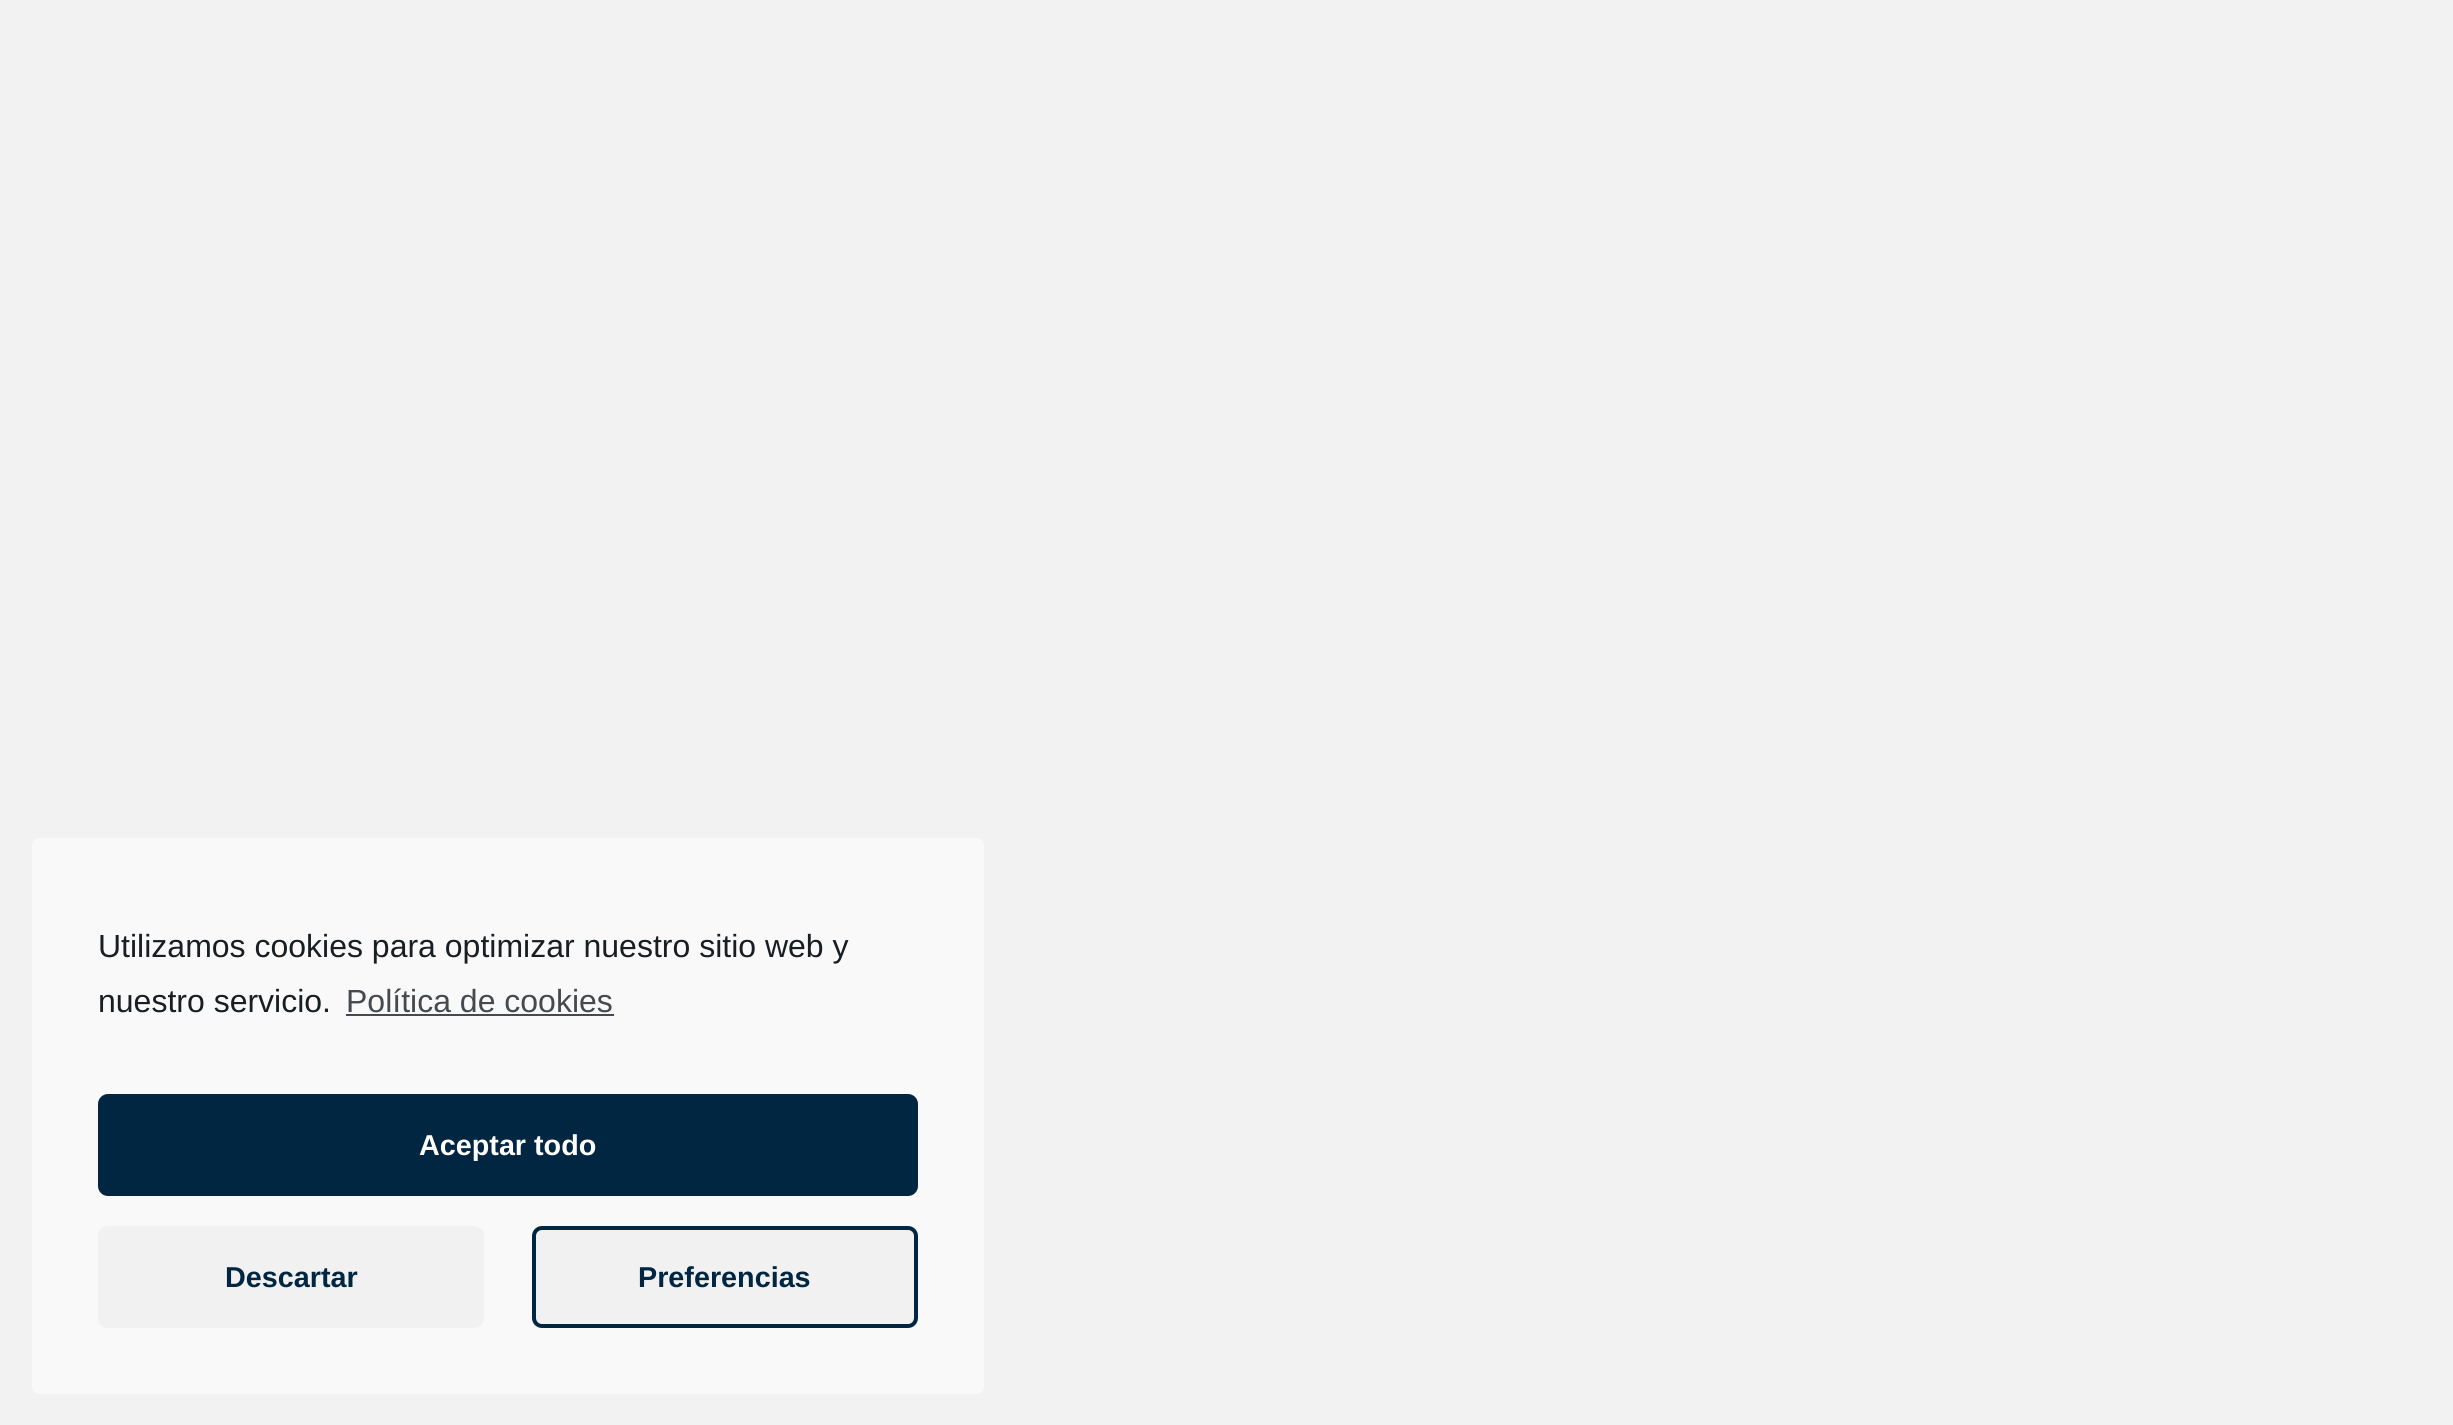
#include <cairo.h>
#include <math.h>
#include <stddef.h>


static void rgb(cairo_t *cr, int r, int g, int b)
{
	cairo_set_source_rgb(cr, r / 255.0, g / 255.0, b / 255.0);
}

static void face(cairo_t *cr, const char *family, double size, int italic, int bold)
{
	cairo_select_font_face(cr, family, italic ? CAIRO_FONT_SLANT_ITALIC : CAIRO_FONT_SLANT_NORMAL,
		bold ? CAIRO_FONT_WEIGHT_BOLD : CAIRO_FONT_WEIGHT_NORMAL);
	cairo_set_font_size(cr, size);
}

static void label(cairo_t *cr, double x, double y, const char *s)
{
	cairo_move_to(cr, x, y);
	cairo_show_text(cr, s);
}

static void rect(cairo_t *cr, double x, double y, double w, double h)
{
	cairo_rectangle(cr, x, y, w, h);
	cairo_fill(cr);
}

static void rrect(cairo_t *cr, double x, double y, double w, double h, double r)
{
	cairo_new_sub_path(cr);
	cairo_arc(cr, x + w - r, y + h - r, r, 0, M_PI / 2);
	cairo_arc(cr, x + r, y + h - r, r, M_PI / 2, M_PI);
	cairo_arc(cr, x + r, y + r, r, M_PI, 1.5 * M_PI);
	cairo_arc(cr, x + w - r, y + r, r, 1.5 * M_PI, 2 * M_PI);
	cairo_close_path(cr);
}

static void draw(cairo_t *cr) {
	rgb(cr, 242, 242, 242);
	cairo_paint(cr);
	rgb(cr, 249, 249, 249);
	rrect(cr, 32, 838, 952, 556, 8);
	cairo_fill(cr);
	face(cr, "Liberation Sans", 32, 0, 0);
	rgb(cr, 25, 30, 35);
	label(cr, 98, 957, "Utilizamos cookies para optimizar nuestro sitio web y");
	label(cr, 98, 1012, "nuestro servicio.");
	rgb(cr, 70, 74, 78);
	label(cr, 346, 1012, "Política de cookies");
	rect(cr, 346, 1014, 268, 2);
	rgb(cr, 0, 38, 66);
	rrect(cr, 100, 1096, 816, 98, 8);
	cairo_fill_preserve(cr);
	cairo_set_line_width(cr, 4);
	cairo_stroke(cr);
	face(cr, "Liberation Sans", 28.75, 0, 1);
	rgb(cr, 255, 255, 255);
	label(cr, 419, 1155, "Aceptar todo");
	rgb(cr, 241, 241, 241);
	rrect(cr, 98, 1226, 386, 102, 10);
	cairo_fill(cr);
	rgb(cr, 0, 38, 66);
	label(cr, 225, 1287, "Descartar");
	rgb(cr, 241, 241, 241);
	rrect(cr, 534, 1228, 382, 98, 8);
	cairo_fill_preserve(cr);
	rgb(cr, 0, 38, 66);
	cairo_stroke(cr);
	label(cr, 638, 1287, "Preferencias");
}

int main(void) {
	cairo_surface_t *surface = cairo_image_surface_create(CAIRO_FORMAT_RGB24, 2453, 1425);
	cairo_t *cr = cairo_create(surface);
	cairo_font_options_t *options = cairo_font_options_create();
	cairo_font_options_set_hint_metrics(options, CAIRO_HINT_METRICS_OFF);
	cairo_font_options_set_hint_style(options, CAIRO_HINT_STYLE_NONE);
	cairo_set_font_options(cr, options);
	cairo_set_miter_limit(cr, 4);
	draw(cr);
	cairo_surface_write_to_png(surface, "render.png");
	cairo_font_options_destroy(options);
	cairo_destroy(cr);
	cairo_surface_destroy(surface);
	return 0;
}
